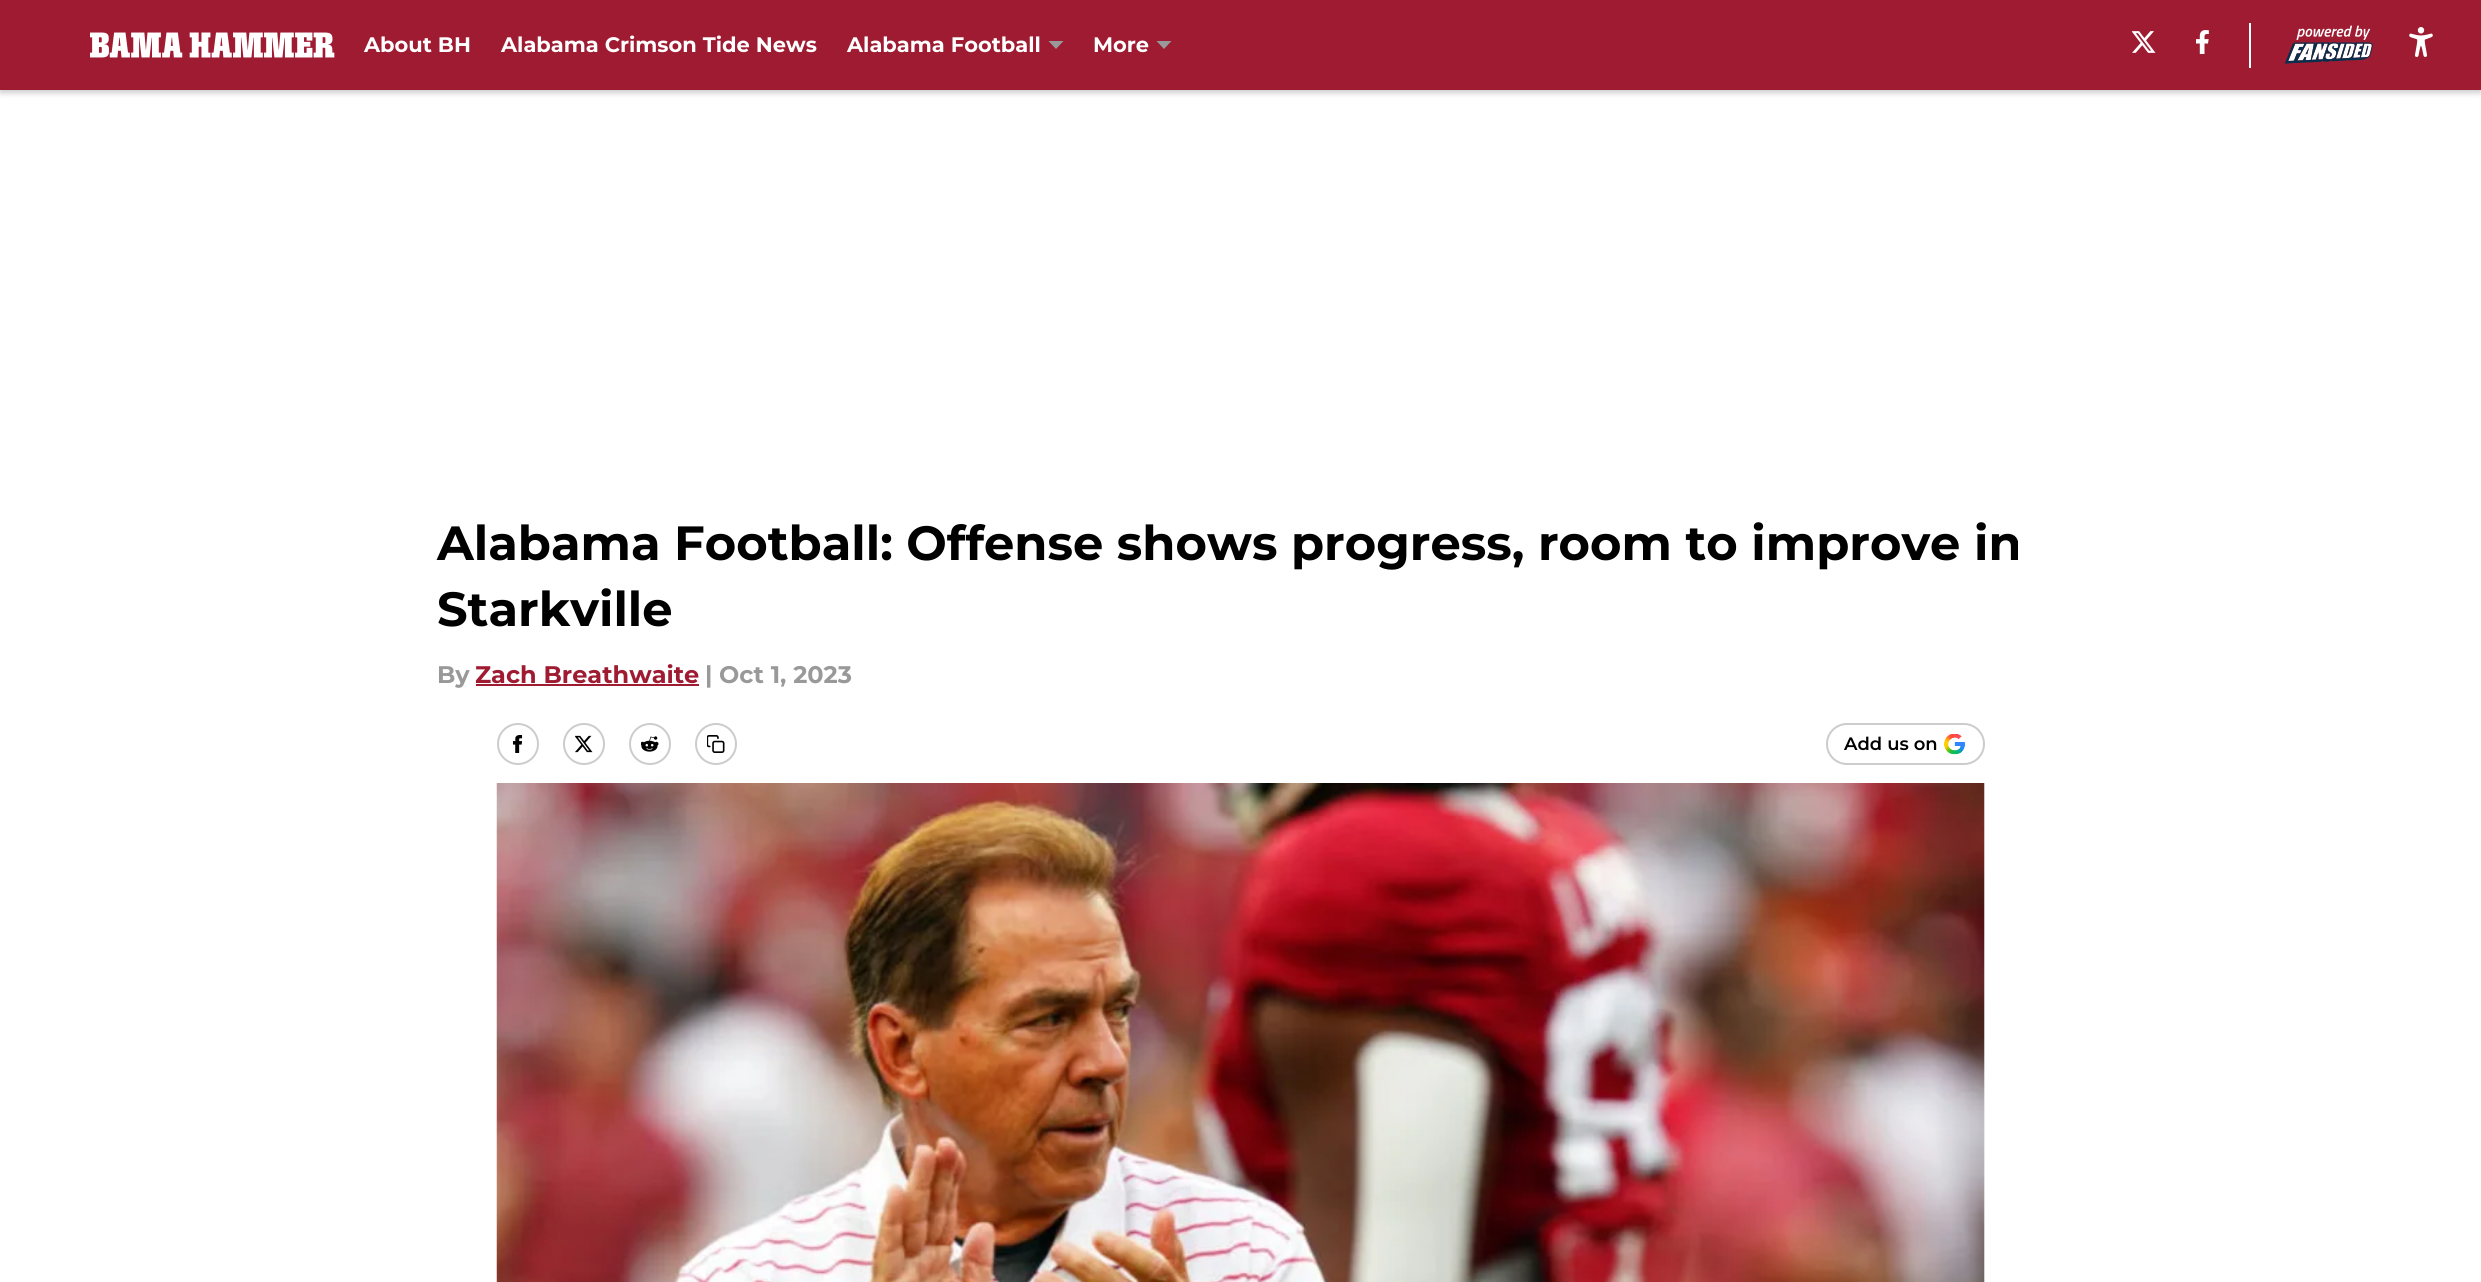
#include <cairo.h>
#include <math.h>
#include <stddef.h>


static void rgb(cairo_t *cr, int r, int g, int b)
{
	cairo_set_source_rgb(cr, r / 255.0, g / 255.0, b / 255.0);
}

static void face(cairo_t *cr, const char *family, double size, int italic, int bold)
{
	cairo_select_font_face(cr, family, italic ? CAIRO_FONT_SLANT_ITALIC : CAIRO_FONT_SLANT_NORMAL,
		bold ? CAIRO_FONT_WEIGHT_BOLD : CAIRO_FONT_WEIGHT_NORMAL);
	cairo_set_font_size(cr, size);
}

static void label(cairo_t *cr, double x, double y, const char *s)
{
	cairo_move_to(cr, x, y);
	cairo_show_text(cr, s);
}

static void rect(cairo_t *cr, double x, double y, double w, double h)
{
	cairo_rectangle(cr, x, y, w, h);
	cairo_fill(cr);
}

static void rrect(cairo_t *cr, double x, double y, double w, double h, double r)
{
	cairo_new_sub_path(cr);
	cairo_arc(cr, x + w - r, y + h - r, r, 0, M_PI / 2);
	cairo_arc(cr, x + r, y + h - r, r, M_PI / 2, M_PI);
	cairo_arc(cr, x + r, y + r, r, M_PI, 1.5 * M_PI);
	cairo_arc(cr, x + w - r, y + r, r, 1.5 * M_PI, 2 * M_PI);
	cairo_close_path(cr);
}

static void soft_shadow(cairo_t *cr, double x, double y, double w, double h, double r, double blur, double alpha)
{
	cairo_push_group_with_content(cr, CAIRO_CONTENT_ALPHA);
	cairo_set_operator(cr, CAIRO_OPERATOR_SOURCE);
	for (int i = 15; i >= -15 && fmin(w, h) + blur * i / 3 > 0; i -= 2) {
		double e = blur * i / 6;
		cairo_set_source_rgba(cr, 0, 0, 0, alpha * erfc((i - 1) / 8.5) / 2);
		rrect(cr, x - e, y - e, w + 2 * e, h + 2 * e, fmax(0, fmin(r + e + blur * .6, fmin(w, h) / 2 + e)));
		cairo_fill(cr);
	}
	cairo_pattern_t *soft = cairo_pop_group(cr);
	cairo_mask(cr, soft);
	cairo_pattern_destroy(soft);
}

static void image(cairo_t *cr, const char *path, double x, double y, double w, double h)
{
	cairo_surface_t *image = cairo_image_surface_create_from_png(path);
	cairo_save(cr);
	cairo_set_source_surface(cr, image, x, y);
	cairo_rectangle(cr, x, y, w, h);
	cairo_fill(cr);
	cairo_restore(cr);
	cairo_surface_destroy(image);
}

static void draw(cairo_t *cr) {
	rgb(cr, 255, 255, 255);
	cairo_paint(cr);
	rgb(cr, 0, 0, 0);
	soft_shadow(cr, 0, 3, 2481, 90, 0, 3, 0.2);
	rgb(cr, 158, 27, 50);
	rect(cr, 0, 0, 2481, 90);
	image(cr, "image0.png", 90, 32, 245, 26);
	face(cr, "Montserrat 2 Thin", 21, 0, 0);
	rgb(cr, 255, 255, 255);
	label(cr, 364, 52, "About BH");
	label(cr, 501, 52, "Alabama Crimson Tide News");
	label(cr, 847, 52, "Alabama Football");
	rgb(cr, 153, 153, 153);
	cairo_set_fill_rule(cr, CAIRO_FILL_RULE_EVEN_ODD);
	cairo_new_path(cr);
	cairo_move_to(cr, 1048.5, 41);
	cairo_line_to(cr, 1056, 49);
	cairo_line_to(cr, 1063.5, 41);
	cairo_close_path(cr);
	cairo_fill(cr);
	rgb(cr, 255, 255, 255);
	label(cr, 1093, 52, "More");
	rgb(cr, 153, 153, 153);
	cairo_new_path(cr);
	cairo_move_to(cr, 1156.5, 41);
	cairo_line_to(cr, 1164, 49);
	cairo_line_to(cr, 1171.5, 41);
	cairo_close_path(cr);
	cairo_fill(cr);
	image(cr, "image1.png", 2132, 31, 24, 22);
	image(cr, "image2.png", 2196, 30, 13, 24);
	rgb(cr, 255, 255, 255);
	rect(cr, 2249, 23, 2, 45);
	image(cr, "image3.png", 2284, 25, 89, 39);
	image(cr, "image4.png", 2409, 27, 24, 30);
	face(cr, "Montserrat 2 Thin", 48, 0, 0);
	rgb(cr, 0, 0, 0);
	label(cr, 437, 560, "Alabama Football: Offense shows progress, room to improve in");
	label(cr, 437, 626, "Starkville");
	face(cr, "Montserrat 2 Thin", 24, 0, 0);
	rgb(cr, 153, 153, 153);
	label(cr, 437, 683, "By");
	rgb(cr, 158, 27, 50);
	label(cr, 475, 683, "Zach Breathwaite");
	rect(cr, 476, 684, 223, 2);
	rgb(cr, 153, 153, 153);
	label(cr, 705, 683, "|");
	label(cr, 719, 683, "Oct 1, 2023");
	cairo_new_path(cr);
	cairo_arc(cr, 518, 744, 20, 0, 2 * M_PI);
	rgb(cr, 204, 204, 204);
	cairo_stroke(cr);
	image(cr, "image5.png", 512, 735, 11, 18);
	cairo_arc(cr, 584, 744, 20, 0, 2 * M_PI);
	cairo_stroke(cr);
	image(cr, "image6.png", 575, 735, 18, 18);
	cairo_arc(cr, 650, 744, 20, 0, 2 * M_PI);
	cairo_stroke(cr);
	image(cr, "image7.png", 641, 736, 18, 16);
	cairo_arc(cr, 716, 744, 20, 0, 2 * M_PI);
	cairo_stroke(cr);
	image(cr, "image8.png", 707, 735, 18, 18);
	rrect(cr, 1827, 724, 157, 40, 20);
	cairo_stroke(cr);
	face(cr, "Montserrat Thin", 18, 0, 0);
	rgb(cr, 0, 0, 0);
	label(cr, 1844, 750, "Add us on");
	image(cr, "image9.png", 1944, 734, 21, 21);
	rgb(cr, 247, 247, 247);
	rect(cr, 1984, 783, 1, 499);
	image(cr, "image10.png", 496, 783, 1489, 499);
}

int main(void) {
	cairo_surface_t *surface = cairo_image_surface_create(CAIRO_FORMAT_RGB24, 2481, 1282);
	cairo_t *cr = cairo_create(surface);
	cairo_font_options_t *options = cairo_font_options_create();
	cairo_font_options_set_hint_metrics(options, CAIRO_HINT_METRICS_OFF);
	cairo_font_options_set_hint_style(options, CAIRO_HINT_STYLE_NONE);
	cairo_set_font_options(cr, options);
	cairo_set_miter_limit(cr, 4);
	draw(cr);
	cairo_surface_write_to_png(surface, "render.png");
	cairo_font_options_destroy(options);
	cairo_destroy(cr);
	cairo_surface_destroy(surface);
	return 0;
}
